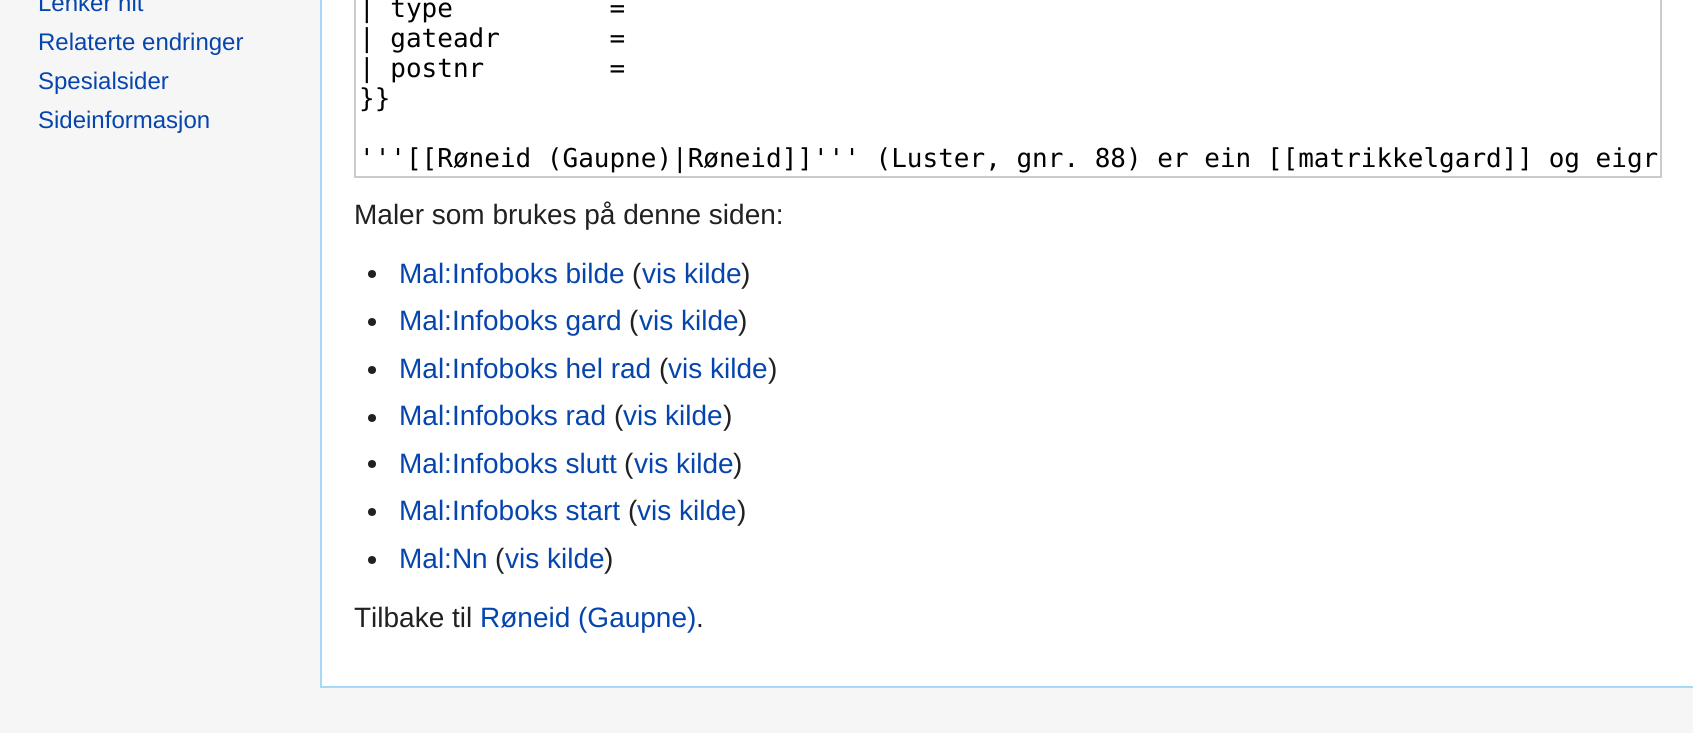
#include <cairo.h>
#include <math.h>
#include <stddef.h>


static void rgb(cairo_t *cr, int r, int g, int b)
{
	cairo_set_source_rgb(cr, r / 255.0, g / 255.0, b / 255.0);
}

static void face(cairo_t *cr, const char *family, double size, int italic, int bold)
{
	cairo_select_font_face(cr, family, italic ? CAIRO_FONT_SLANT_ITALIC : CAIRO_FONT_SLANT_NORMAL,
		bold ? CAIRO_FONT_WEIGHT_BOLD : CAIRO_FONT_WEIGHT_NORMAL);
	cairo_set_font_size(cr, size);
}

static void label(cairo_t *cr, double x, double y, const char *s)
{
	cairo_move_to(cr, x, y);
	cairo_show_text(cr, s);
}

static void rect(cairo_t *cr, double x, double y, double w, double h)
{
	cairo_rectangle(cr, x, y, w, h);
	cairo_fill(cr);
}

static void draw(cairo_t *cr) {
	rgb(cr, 246, 246, 246);
	cairo_paint(cr);
	face(cr, "Liberation Sans", 24, 0, 0);
	rgb(cr, 6, 69, 173);
	label(cr, 38, 11, "Lenker hit");
	label(cr, 38, 50, "Relaterte endringer");
	label(cr, 38, 89, "Spesialsider");
	label(cr, 38, 128, "Sideinformasjon");
	rgb(cr, 255, 255, 255);
	rect(cr, 322, 0, 1371, 686);
	rgb(cr, 167, 215, 249);
	rect(cr, 320, 686, 1373, 2);
	rect(cr, 320, 0, 2, 688);
	cairo_rectangle(cr, 355, -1, 1306, 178);
	rgb(cr, 200, 204, 209);
	cairo_stroke(cr);
	face(cr, "DejaVu Sans Mono", 26, 0, 0);
	rgb(cr, 0, 0, 0);
	label(cr, 359, 17, "| type          =");
	label(cr, 359, 47, "| gateadr       =");
	label(cr, 359, 77, "| postnr        =");
	label(cr, 359, 107, "}}");
	label(cr, 359, 167, "'''[[Røneid (Gaupne)|Røneid]]''' (Luster, gnr. 88) er ein [[matrikkelgard]] og eigr");
	face(cr, "Liberation Sans", 28, 0, 0);
	rgb(cr, 32, 33, 34);
	label(cr, 354, 224, "Maler som brukes på denne siden:");
	cairo_new_path(cr);
	cairo_arc(cr, 372, 274, 4, 0, 2 * M_PI);
	cairo_fill(cr);
	rgb(cr, 6, 69, 173);
	label(cr, 399, 283, "Mal:Infoboks bilde");
	rgb(cr, 32, 33, 34);
	label(cr, 632, 283, "(");
	rgb(cr, 6, 69, 173);
	label(cr, 642, 283, "vis kilde");
	rgb(cr, 32, 33, 34);
	label(cr, 741, 283, ")");
	cairo_new_path(cr);
	cairo_arc(cr, 372, 322, 4, 0, 2 * M_PI);
	cairo_fill(cr);
	rgb(cr, 6, 69, 173);
	label(cr, 399, 330, "Mal:Infoboks gard");
	rgb(cr, 32, 33, 34);
	label(cr, 629, 330, "(");
	rgb(cr, 6, 69, 173);
	label(cr, 639, 330, "vis kilde");
	rgb(cr, 32, 33, 34);
	label(cr, 738, 330, ")");
	cairo_new_path(cr);
	cairo_arc(cr, 372, 370, 4, 0, 2 * M_PI);
	cairo_fill(cr);
	rgb(cr, 6, 69, 173);
	label(cr, 399, 378, "Mal:Infoboks hel rad");
	rgb(cr, 32, 33, 34);
	label(cr, 659, 378, "(");
	rgb(cr, 6, 69, 173);
	label(cr, 668, 378, "vis kilde");
	rgb(cr, 32, 33, 34);
	label(cr, 768, 378, ")");
	cairo_new_path(cr);
	cairo_arc(cr, 372, 418, 4, 0, 2 * M_PI);
	cairo_fill(cr);
	rgb(cr, 6, 69, 173);
	label(cr, 399, 425, "Mal:Infoboks rad");
	rgb(cr, 32, 33, 34);
	label(cr, 614, 425, "(");
	rgb(cr, 6, 69, 173);
	label(cr, 623, 425, "vis kilde");
	rgb(cr, 32, 33, 34);
	label(cr, 723, 425, ")");
	cairo_new_path(cr);
	cairo_arc(cr, 372, 464, 4, 0, 2 * M_PI);
	cairo_fill(cr);
	rgb(cr, 6, 69, 173);
	label(cr, 399, 473, "Mal:Infoboks slutt");
	rgb(cr, 32, 33, 34);
	label(cr, 624, 473, "(");
	rgb(cr, 6, 69, 173);
	label(cr, 634, 473, "vis kilde");
	rgb(cr, 32, 33, 34);
	label(cr, 733, 473, ")");
	cairo_new_path(cr);
	cairo_arc(cr, 372, 512, 4, 0, 2 * M_PI);
	cairo_fill(cr);
	rgb(cr, 6, 69, 173);
	label(cr, 399, 520, "Mal:Infoboks start");
	rgb(cr, 32, 33, 34);
	label(cr, 628, 520, "(");
	rgb(cr, 6, 69, 173);
	label(cr, 637, 520, "vis kilde");
	rgb(cr, 32, 33, 34);
	label(cr, 737, 520, ")");
	cairo_new_path(cr);
	cairo_arc(cr, 372, 560, 4, 0, 2 * M_PI);
	cairo_fill(cr);
	rgb(cr, 6, 69, 173);
	label(cr, 399, 568, "Mal:Nn");
	rgb(cr, 32, 33, 34);
	label(cr, 495, 568, "(");
	rgb(cr, 6, 69, 173);
	label(cr, 505, 568, "vis kilde");
	rgb(cr, 32, 33, 34);
	label(cr, 604, 568, ")");
	label(cr, 354, 627, "Tilbake til");
	rgb(cr, 6, 69, 173);
	label(cr, 480, 627, "Røneid (Gaupne)");
	rgb(cr, 32, 33, 34);
	label(cr, 696, 627, ".");
}

int main(void) {
	cairo_surface_t *surface = cairo_image_surface_create(CAIRO_FORMAT_RGB24, 1693, 733);
	cairo_t *cr = cairo_create(surface);
	cairo_font_options_t *options = cairo_font_options_create();
	cairo_font_options_set_hint_metrics(options, CAIRO_HINT_METRICS_OFF);
	cairo_font_options_set_hint_style(options, CAIRO_HINT_STYLE_NONE);
	cairo_set_font_options(cr, options);
	cairo_set_miter_limit(cr, 4);
	draw(cr);
	cairo_surface_write_to_png(surface, "render.png");
	cairo_font_options_destroy(options);
	cairo_destroy(cr);
	cairo_surface_destroy(surface);
	return 0;
}
